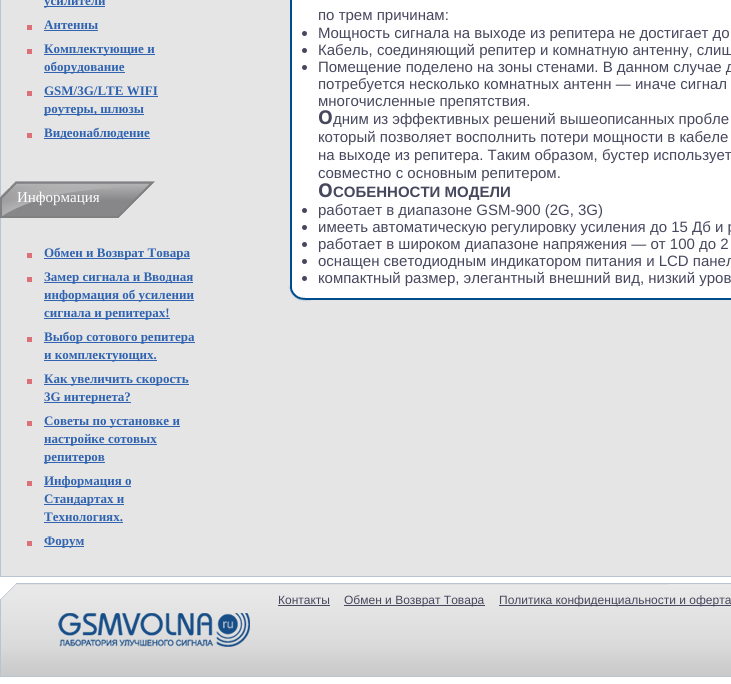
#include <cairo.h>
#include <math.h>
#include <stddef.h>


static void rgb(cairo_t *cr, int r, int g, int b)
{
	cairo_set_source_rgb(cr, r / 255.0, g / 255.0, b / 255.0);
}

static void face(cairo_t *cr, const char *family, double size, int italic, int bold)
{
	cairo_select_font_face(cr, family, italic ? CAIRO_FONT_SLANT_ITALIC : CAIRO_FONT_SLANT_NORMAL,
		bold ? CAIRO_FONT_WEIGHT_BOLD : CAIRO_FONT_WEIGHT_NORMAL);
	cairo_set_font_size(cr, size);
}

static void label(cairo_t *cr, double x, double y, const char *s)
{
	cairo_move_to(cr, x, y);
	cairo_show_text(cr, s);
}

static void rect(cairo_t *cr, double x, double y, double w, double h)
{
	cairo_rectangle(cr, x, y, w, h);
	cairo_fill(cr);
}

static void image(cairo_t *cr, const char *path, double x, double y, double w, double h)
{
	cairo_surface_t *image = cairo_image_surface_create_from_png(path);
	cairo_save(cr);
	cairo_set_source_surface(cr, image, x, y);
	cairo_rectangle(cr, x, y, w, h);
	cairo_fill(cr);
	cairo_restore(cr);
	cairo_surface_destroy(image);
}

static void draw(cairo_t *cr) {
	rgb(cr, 255, 255, 255);
	cairo_paint(cr);
	rgb(cr, 229, 229, 230);
	cairo_rectangle(cr, 0.5, -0.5, 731, 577);
	cairo_fill_preserve(cr);
	rgb(cr, 184, 196, 208);
	cairo_set_line_width(cr, 1);
	cairo_stroke(cr);
	rgb(cr, 48, 99, 176);
	rect(cr, 44, 6, 61, 1);
	face(cr, "Liberation Serif", 13, 0, 1);
	label(cr, 44, 5, "усилители");
	rgb(cr, 219, 112, 120);
	rect(cr, 27, 25, 5, 5);
	rgb(cr, 48, 99, 176);
	label(cr, 44, 29, "Антенны");
	rect(cr, 44, 30, 54, 1);
	rgb(cr, 219, 112, 120);
	rect(cr, 27, 49, 5, 5);
	rgb(cr, 48, 99, 176);
	rect(cr, 44, 54, 111, 1);
	label(cr, 44, 53, "Комплектующие и");
	rect(cr, 44, 72, 81, 1);
	label(cr, 44, 71, "оборудование");
	rgb(cr, 219, 112, 120);
	rect(cr, 27, 91, 5, 5);
	rgb(cr, 48, 99, 176);
	label(cr, 44, 95, "GSM/3G/LTE WIFI");
	rect(cr, 44, 96, 114, 1);
	rect(cr, 44, 114, 100, 1);
	label(cr, 44, 113, "роутеры, шлюзы");
	rgb(cr, 219, 112, 120);
	rect(cr, 27, 133, 5, 5);
	rgb(cr, 48, 99, 176);
	rect(cr, 44, 138, 106, 1);
	label(cr, 44, 137, "Видеонаблюдение");
	image(cr, "image0.png", 0, 181, 155, 37);
	face(cr, "Liberation Serif", 15, 0, 0);
	rgb(cr, 255, 255, 255);
	label(cr, 17, 202, "Информация");
	rgb(cr, 219, 112, 120);
	rect(cr, 27, 253, 5, 5);
	rgb(cr, 48, 99, 176);
	rect(cr, 44, 258, 146, 1);
	face(cr, "Liberation Serif", 13, 0, 1);
	label(cr, 44, 257, "Обмен и Возврат Товара");
	rgb(cr, 219, 112, 120);
	rect(cr, 27, 277, 5, 5);
	rgb(cr, 48, 99, 176);
	rect(cr, 44, 282, 149, 1);
	label(cr, 44, 281, "Замер сигнала и Вводная");
	rect(cr, 44, 300, 150, 1);
	label(cr, 44, 299, "информация об усилении");
	rect(cr, 44, 318, 126, 1);
	label(cr, 44, 317, "сигнала и репитерах!");
	rgb(cr, 219, 112, 120);
	rect(cr, 27, 337, 5, 5);
	rgb(cr, 48, 99, 176);
	rect(cr, 44, 342, 151, 1);
	label(cr, 44, 341, "Выбор сотового репитера");
	rect(cr, 44, 360, 113, 1);
	label(cr, 44, 359, "и комплектующих.");
	rgb(cr, 219, 112, 120);
	rect(cr, 27, 379, 5, 5);
	rgb(cr, 48, 99, 176);
	rect(cr, 44, 384, 145, 1);
	label(cr, 44, 383, "Как увеличить скорость");
	rect(cr, 44, 402, 87, 1);
	label(cr, 44, 401, "3G интернета?");
	rgb(cr, 219, 112, 120);
	rect(cr, 27, 421, 5, 5);
	rgb(cr, 48, 99, 176);
	rect(cr, 44, 426, 136, 1);
	label(cr, 44, 425, "Советы по установке и");
	rect(cr, 44, 444, 113, 1);
	label(cr, 44, 443, "настройке сотовых");
	rect(cr, 44, 462, 61, 1);
	label(cr, 44, 461, "репитеров");
	rgb(cr, 219, 112, 120);
	rect(cr, 27, 481, 5, 5);
	rgb(cr, 48, 99, 176);
	rect(cr, 44, 486, 87, 1);
	label(cr, 44, 485, "Информация о");
	rect(cr, 44, 504, 80, 1);
	label(cr, 44, 503, "Стандартах и");
	label(cr, 44, 521, "Технологиях.");
	rect(cr, 44, 522, 79, 1);
	rgb(cr, 219, 112, 120);
	rect(cr, 27, 541, 5, 5);
	rgb(cr, 48, 99, 176);
	rect(cr, 44, 546, 40, 1);
	label(cr, 44, 545, "Форум");
	image(cr, "image1.png", 290, 0, 10, 286);
	rgb(cr, 255, 255, 255);
	rect(cr, 300, 0, 431, 286);
	face(cr, "Liberation Sans", 15, 0, 0);
	rgb(cr, 71, 71, 94);
	label(cr, 318, 20, "по трем причинам:");
	cairo_new_path(cr);
	cairo_arc(cr, 304.5, 33.5, 2.5, 0, 2 * M_PI);
	cairo_fill(cr);
	label(cr, 318, 38, "Мощность сигнала на выходе из репитера не достигает до");
	cairo_new_path(cr);
	cairo_arc(cr, 304.5, 50.5, 2.5, 0, 2 * M_PI);
	cairo_fill(cr);
	label(cr, 318, 55, "Кабель, соединяющий репитер и комнатную антенну, слиш");
	cairo_new_path(cr);
	cairo_arc(cr, 304.5, 67.5, 2.5, 0, 2 * M_PI);
	cairo_fill(cr);
	label(cr, 318, 72, "Помещение поделено на зоны стенами. В данном случае д");
	label(cr, 318, 89, "потребуется несколько комнатных антенн — иначе сигнал");
	label(cr, 318, 106, "многочисленные препятствия.");
	face(cr, "Noto Sans", 19, 0, 1);
	label(cr, 318, 124, "О");
	face(cr, "Liberation Sans", 15, 0, 0);
	label(cr, 333, 124, "дним из эффективных решений вышеописанных пробле");
	label(cr, 318, 142, "который позволяет восполнить потери мощности в кабеле");
	label(cr, 318, 160, "на выходе из репитера. Таким образом, бустер использует");
	label(cr, 318, 178, "совместно с основным репитером.");
	face(cr, "Noto Sans", 19, 0, 1);
	label(cr, 318, 197, "О");
	face(cr, "Liberation Sans", 15, 0, 1);
	label(cr, 333, 197, "СОБЕННОСТИ МОДЕЛИ");
	cairo_new_path(cr);
	cairo_arc(cr, 304.5, 210.5, 2.5, 0, 2 * M_PI);
	cairo_fill(cr);
	face(cr, "Liberation Sans", 15, 0, 0);
	label(cr, 318, 215, "работает в диапазоне GSM-900 (2G, 3G)");
	cairo_new_path(cr);
	cairo_arc(cr, 304.5, 227.5, 2.5, 0, 2 * M_PI);
	cairo_fill(cr);
	label(cr, 318, 232, "имееть автоматическую регулировку усиления до 15 Дб и р");
	cairo_new_path(cr);
	cairo_arc(cr, 304.5, 244.5, 2.5, 0, 2 * M_PI);
	cairo_fill(cr);
	label(cr, 318, 249, "работает в широком диапазоне напряжения — от 100 до 2");
	cairo_new_path(cr);
	cairo_arc(cr, 304.5, 261.5, 2.5, 0, 2 * M_PI);
	cairo_fill(cr);
	label(cr, 318, 266, "оснащен светодиодным индикатором питания и LCD панел");
	cairo_new_path(cr);
	cairo_arc(cr, 304.5, 278.5, 2.5, 0, 2 * M_PI);
	cairo_fill(cr);
	image(cr, "image2.png", 288, 286, 26, 16);
	image(cr, "image3.png", 305, 286, 426, 14);
	label(cr, 318, 283, "компактный размер, элегантный внешний вид, низкий уров");
	image(cr, "image4.png", 0, 583, 731, 94);
	face(cr, "Liberation Sans", 12, 0, 0);
	label(cr, 278, 604, "Контакты");
	rect(cr, 278, 605, 52, 1);
	rect(cr, 344, 605, 141, 1);
	label(cr, 344, 604, "Обмен и Возврат Товара");
	rect(cr, 499, 605, 232, 1);
	label(cr, 499, 604, "Политика конфиденциальности и оферта");
	image(cr, "image5.png", 58, 613, 192, 34);
}

int main(void) {
	cairo_surface_t *surface = cairo_image_surface_create(CAIRO_FORMAT_RGB24, 731, 684);
	cairo_t *cr = cairo_create(surface);
	cairo_font_options_t *options = cairo_font_options_create();
	cairo_font_options_set_hint_metrics(options, CAIRO_HINT_METRICS_OFF);
	cairo_font_options_set_hint_style(options, CAIRO_HINT_STYLE_NONE);
	cairo_set_font_options(cr, options);
	cairo_set_miter_limit(cr, 4);
	draw(cr);
	cairo_surface_write_to_png(surface, "render.png");
	cairo_font_options_destroy(options);
	cairo_destroy(cr);
	cairo_surface_destroy(surface);
	return 0;
}
